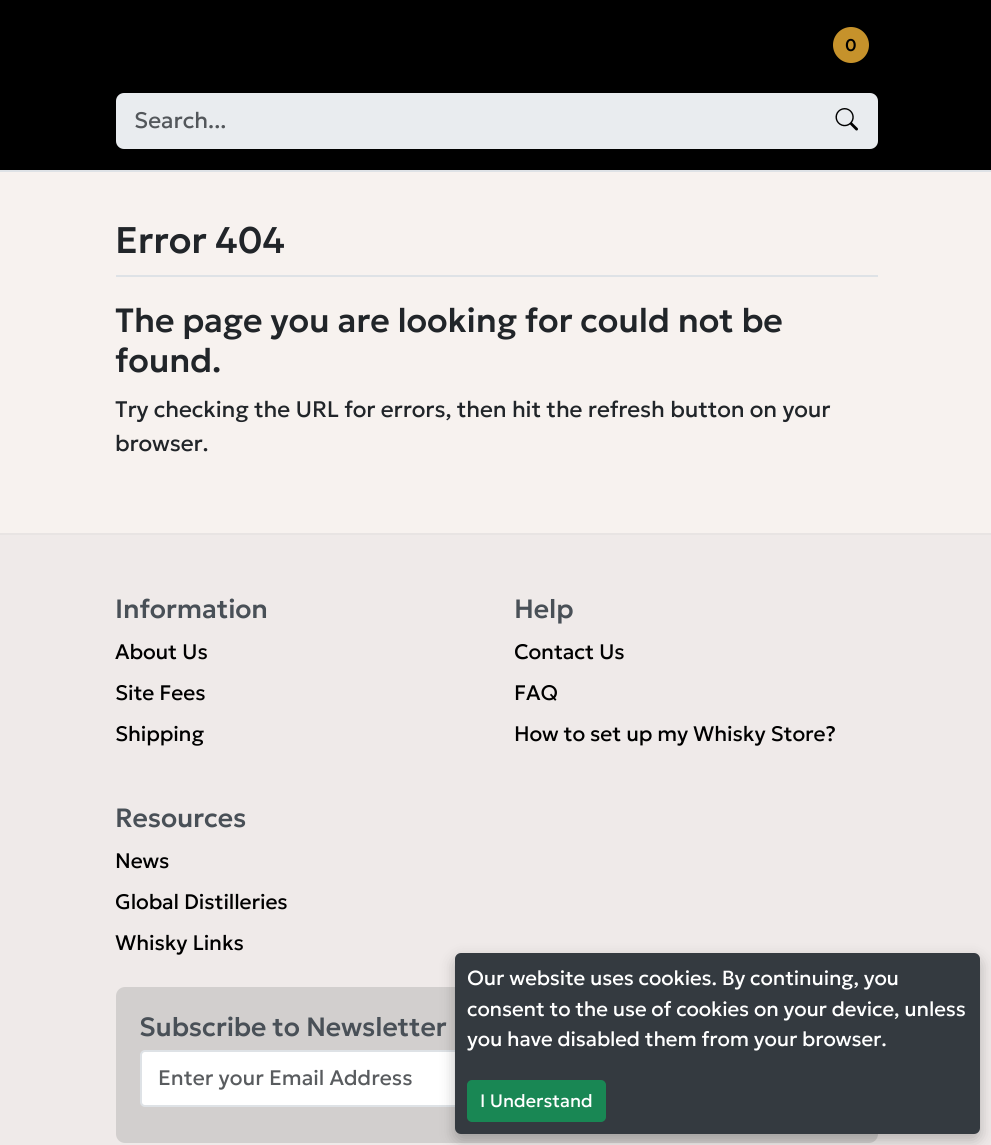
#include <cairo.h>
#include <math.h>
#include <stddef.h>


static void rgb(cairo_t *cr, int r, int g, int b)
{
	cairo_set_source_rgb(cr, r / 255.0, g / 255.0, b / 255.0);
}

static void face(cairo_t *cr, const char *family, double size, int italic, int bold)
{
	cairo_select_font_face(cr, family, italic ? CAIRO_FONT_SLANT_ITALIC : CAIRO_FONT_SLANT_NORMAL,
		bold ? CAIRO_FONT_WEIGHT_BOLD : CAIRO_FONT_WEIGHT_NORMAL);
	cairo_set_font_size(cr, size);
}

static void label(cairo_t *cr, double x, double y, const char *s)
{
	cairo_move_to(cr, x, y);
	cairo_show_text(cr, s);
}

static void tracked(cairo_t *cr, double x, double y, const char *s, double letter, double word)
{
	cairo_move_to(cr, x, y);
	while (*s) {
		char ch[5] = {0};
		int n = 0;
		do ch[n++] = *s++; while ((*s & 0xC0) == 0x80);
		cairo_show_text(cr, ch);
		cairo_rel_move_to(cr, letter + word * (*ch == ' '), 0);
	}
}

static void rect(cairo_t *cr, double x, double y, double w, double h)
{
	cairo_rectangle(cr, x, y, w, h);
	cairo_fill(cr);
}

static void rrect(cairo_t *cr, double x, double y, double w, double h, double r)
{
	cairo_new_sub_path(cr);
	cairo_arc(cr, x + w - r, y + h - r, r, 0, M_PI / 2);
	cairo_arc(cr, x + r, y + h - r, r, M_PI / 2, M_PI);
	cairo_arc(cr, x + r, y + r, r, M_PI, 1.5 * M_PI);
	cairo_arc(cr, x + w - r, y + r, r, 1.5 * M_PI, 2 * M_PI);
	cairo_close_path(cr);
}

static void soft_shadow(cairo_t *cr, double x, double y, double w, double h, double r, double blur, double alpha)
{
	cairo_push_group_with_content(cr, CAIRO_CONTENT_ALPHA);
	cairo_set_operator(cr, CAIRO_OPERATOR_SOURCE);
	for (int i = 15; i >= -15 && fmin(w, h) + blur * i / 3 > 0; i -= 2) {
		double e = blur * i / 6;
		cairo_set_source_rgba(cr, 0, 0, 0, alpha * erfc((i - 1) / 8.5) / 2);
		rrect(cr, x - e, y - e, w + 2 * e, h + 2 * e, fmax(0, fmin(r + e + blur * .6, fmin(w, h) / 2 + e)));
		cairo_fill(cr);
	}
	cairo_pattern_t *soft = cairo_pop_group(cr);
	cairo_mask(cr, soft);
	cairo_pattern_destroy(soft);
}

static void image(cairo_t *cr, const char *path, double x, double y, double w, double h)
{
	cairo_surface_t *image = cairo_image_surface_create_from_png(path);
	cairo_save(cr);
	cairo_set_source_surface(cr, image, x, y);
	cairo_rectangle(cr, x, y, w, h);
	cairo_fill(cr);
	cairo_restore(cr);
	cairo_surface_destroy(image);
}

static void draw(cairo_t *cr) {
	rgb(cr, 247, 242, 239);
	cairo_paint(cr);
	rgb(cr, 0, 0, 0);
	rect(cr, 0, 0, 991, 170);
	rgb(cr, 222, 226, 230);
	rect(cr, 0, 170, 991, 2);
	rgb(cr, 198, 146, 43);
	cairo_arc(cr, 851, 45, 18, 0, 2 * M_PI);
	cairo_fill(cr);
	face(cr, "Geologica Medium", 17, 0, 0);
	rgb(cr, 0, 0, 0);
	tracked(cr, 845, 51, "0", -0.12, 0);
	rgb(cr, 233, 236, 239);
	rrect(cr, 117, 94, 760, 54, 7);
	cairo_fill_preserve(cr);
	cairo_stroke(cr);
	face(cr, "Geologica", 22.5, 0, 0);
	rgb(cr, 83, 87, 91);
	label(cr, 134, 128, "Search...");
	image(cr, "image0.png", 835, 108, 23, 23);
	rgb(cr, 222, 226, 230);
	rect(cr, 116, 275, 762, 2);
	face(cr, "Geologica Medium", 37, 0, 0);
	rgb(cr, 33, 37, 41);
	tracked(cr, 115, 253, "Error 404", -0.12, 0);
	face(cr, "Geologica Medium", 33.6, 0, 0);
	tracked(cr, 115, 332, "The page you are looking for could not be", -0.12, 0);
	tracked(cr, 115, 372, "found.", -0.12, 0);
	face(cr, "Geologica", 22.5, 0, 0);
	tracked(cr, 115, 417, "Try checking the URL for errors, then hit the refresh button on your", -0.12, 0);
	tracked(cr, 115, 451, "browser.", -0.12, 0);
	rgb(cr, 239, 234, 233);
	rect(cr, 0, 535, 991, 610);
	rgb(cr, 232, 228, 227);
	rect(cr, 0, 533, 991, 2);
	face(cr, "Geologica Medium", 26.4, 0, 0);
	rgb(cr, 73, 80, 87);
	tracked(cr, 115, 618, "Information", -0.12, 0);
	face(cr, "Geologica", 21, 0, 0);
	rgb(cr, 0, 0, 0);
	tracked(cr, 115, 659, "About Us", -0.12, 0);
	tracked(cr, 115, 700, "Site Fees", -0.12, 0);
	tracked(cr, 115, 741, "Shipping", -0.12, 0);
	face(cr, "Geologica Medium", 26.4, 0, 0);
	rgb(cr, 73, 80, 87);
	tracked(cr, 514, 618, "Help", -0.12, 0);
	face(cr, "Geologica", 21, 0, 0);
	rgb(cr, 0, 0, 0);
	tracked(cr, 514, 659, "Contact Us", -0.12, 0);
	tracked(cr, 514, 700, "FAQ", -0.12, 0);
	tracked(cr, 514, 741, "How to set up my Whisky Store?", -0.12, 0);
	face(cr, "Geologica Medium", 26.4, 0, 0);
	rgb(cr, 73, 80, 87);
	tracked(cr, 115, 827, "Resources", -0.12, 0);
	face(cr, "Geologica", 21, 0, 0);
	rgb(cr, 0, 0, 0);
	tracked(cr, 115, 868, "News", -0.12, 0);
	tracked(cr, 115, 909, "Global Distilleries", -0.12, 0);
	tracked(cr, 115, 950, "Whisky Links", -0.12, 0);
	rgb(cr, 210, 207, 206);
	rrect(cr, 116, 987, 762, 156, 9);
	cairo_fill(cr);
	face(cr, "Geologica Medium", 26.4, 0, 0);
	rgb(cr, 73, 80, 87);
	tracked(cr, 139, 1036, "Subscribe to Newsletter", -0.12, 0);
	rgb(cr, 255, 255, 255);
	rrect(cr, 141, 1051, 403, 55, 4);
	cairo_fill_preserve(cr);
	rgb(cr, 222, 226, 230);
	cairo_stroke(cr);
	face(cr, "Geologica", 21, 0, 0);
	rgb(cr, 89, 92, 95);
	label(cr, 158, 1085, "Enter your Email Address");
	rgb(cr, 0, 0, 0);
	soft_shadow(cr, 455, 959, 525, 181, 6, 7.5, 0.25);
	rgb(cr, 52, 58, 64);
	rrect(cr, 455, 953, 525, 181, 6);
	cairo_fill(cr);
	face(cr, "Geologica", 20.4, 0, 0);
	rgb(cr, 255, 255, 255);
	tracked(cr, 467, 985, "Our website uses cookies. By continuing, you", -0.12, 0);
	tracked(cr, 467, 1016, "consent to the use of cookies on your device, unless", -0.12, 0);
	tracked(cr, 467, 1046, "you have disabled them from your browser.", -0.12, 0);
	rgb(cr, 25, 135, 84);
	rrect(cr, 468, 1081, 137, 40, 4);
	cairo_fill_preserve(cr);
	cairo_stroke(cr);
	face(cr, "Geologica", 18, 0, 0);
	rgb(cr, 255, 255, 255);
	label(cr, 480, 1107, "I Understand");
}

int main(void) {
	cairo_surface_t *surface = cairo_image_surface_create(CAIRO_FORMAT_RGB24, 991, 1145);
	cairo_t *cr = cairo_create(surface);
	cairo_font_options_t *options = cairo_font_options_create();
	cairo_font_options_set_hint_metrics(options, CAIRO_HINT_METRICS_OFF);
	cairo_font_options_set_hint_style(options, CAIRO_HINT_STYLE_NONE);
	cairo_set_font_options(cr, options);
	cairo_set_miter_limit(cr, 4);
	draw(cr);
	cairo_surface_write_to_png(surface, "render.png");
	cairo_font_options_destroy(options);
	cairo_destroy(cr);
	cairo_surface_destroy(surface);
	return 0;
}
